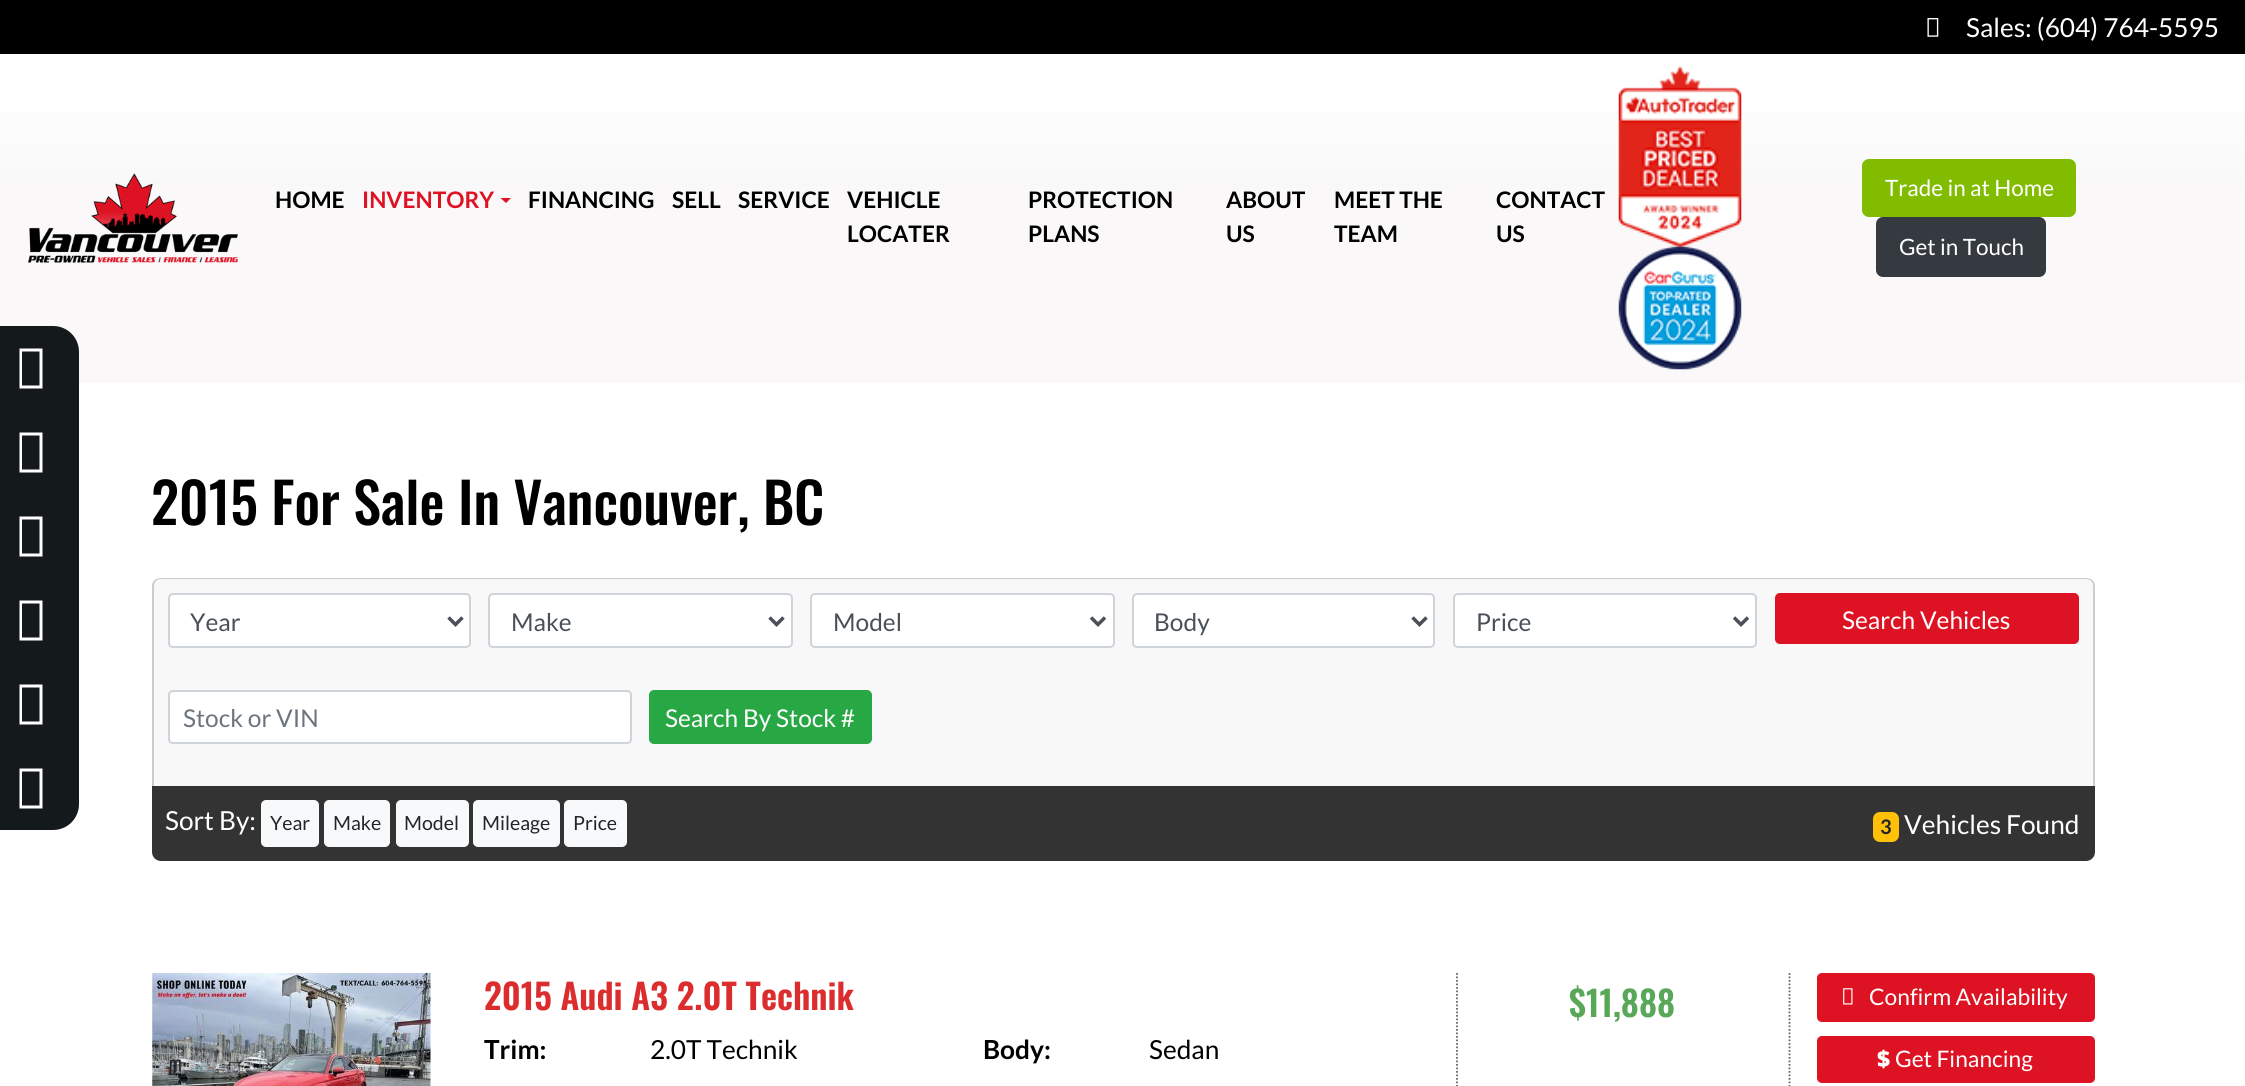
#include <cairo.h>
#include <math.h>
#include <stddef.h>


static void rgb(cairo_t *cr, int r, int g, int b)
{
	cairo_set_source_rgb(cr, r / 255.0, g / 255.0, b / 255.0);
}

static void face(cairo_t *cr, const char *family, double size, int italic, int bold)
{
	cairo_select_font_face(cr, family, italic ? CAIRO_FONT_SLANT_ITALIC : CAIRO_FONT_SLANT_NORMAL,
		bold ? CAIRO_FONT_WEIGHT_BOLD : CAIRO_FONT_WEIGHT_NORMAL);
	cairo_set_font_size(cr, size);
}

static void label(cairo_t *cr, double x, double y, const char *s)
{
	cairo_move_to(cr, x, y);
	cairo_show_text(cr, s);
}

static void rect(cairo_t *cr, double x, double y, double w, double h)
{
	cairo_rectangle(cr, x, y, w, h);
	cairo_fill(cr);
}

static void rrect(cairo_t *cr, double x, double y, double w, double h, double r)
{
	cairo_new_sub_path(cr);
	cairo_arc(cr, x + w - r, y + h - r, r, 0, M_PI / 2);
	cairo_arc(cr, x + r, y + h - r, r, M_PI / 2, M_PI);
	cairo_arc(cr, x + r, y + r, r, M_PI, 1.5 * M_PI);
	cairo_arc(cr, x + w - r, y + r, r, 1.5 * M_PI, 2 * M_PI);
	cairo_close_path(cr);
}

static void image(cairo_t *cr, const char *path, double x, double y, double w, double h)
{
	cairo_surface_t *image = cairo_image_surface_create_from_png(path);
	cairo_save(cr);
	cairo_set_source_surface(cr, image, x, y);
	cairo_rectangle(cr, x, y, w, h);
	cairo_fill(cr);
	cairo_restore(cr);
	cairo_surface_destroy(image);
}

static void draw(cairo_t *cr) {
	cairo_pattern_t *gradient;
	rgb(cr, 255, 255, 255);
	cairo_paint(cr);
	rgb(cr, 0, 0, 0);
	rect(cr, 0, 0, 2245, 54);
	image(cr, "image0.png", 1927, 18, 12, 19);
	face(cr, "Lato", 26.25, 0, 0);
	rgb(cr, 255, 255, 255);
	label(cr, 1966, 37, "Sales: (604) 764-5595");
	rgb(cr, 250, 248, 249);
	rect(cr, 0, 186, 2245, 197);
	rgb(cr, 20, 25, 28);
	cairo_new_path(cr);
	cairo_move_to(cr, 0, 326);
	cairo_line_to(cr, 53, 326);
	cairo_curve_to(cr, 67.5, 326, 79, 337.5, 79, 352);
	cairo_line_to(cr, 79, 410);
	cairo_line_to(cr, 0, 410);
	cairo_close_path(cr);
	cairo_fill(cr);
	rgb(cr, 255, 255, 255);
	cairo_new_path(cr);
	cairo_move_to(cr, 19.5, 388.5);
	cairo_line_to(cr, 19.5, 348.5);
	cairo_line_to(cr, 42.5, 348.5);
	cairo_line_to(cr, 42.5, 388.5);
	cairo_close_path(cr);
	cairo_move_to(cr, 22, 385.5);
	cairo_line_to(cr, 39.5, 385.5);
	cairo_line_to(cr, 39.5, 351.5);
	cairo_line_to(cr, 22, 351.5);
	cairo_close_path(cr);
	cairo_fill(cr);
	rgb(cr, 20, 25, 28);
	rect(cr, 0, 410, 79, 336);
	rgb(cr, 255, 255, 255);
	cairo_new_path(cr);
	cairo_move_to(cr, 19.5, 472.5);
	cairo_line_to(cr, 19.5, 432.5);
	cairo_line_to(cr, 42.5, 432.5);
	cairo_line_to(cr, 42.5, 472.5);
	cairo_close_path(cr);
	cairo_move_to(cr, 22, 469.5);
	cairo_line_to(cr, 39.5, 469.5);
	cairo_line_to(cr, 39.5, 435.5);
	cairo_line_to(cr, 22, 435.5);
	cairo_close_path(cr);
	cairo_fill(cr);
	cairo_new_path(cr);
	cairo_move_to(cr, 19.5, 556.5);
	cairo_line_to(cr, 19.5, 516.5);
	cairo_line_to(cr, 42.5, 516.5);
	cairo_line_to(cr, 42.5, 556.5);
	cairo_close_path(cr);
	cairo_move_to(cr, 22, 553.5);
	cairo_line_to(cr, 39.5, 553.5);
	cairo_line_to(cr, 39.5, 519.5);
	cairo_line_to(cr, 22, 519.5);
	cairo_close_path(cr);
	cairo_fill(cr);
	cairo_new_path(cr);
	cairo_move_to(cr, 19.5, 640.5);
	cairo_line_to(cr, 19.5, 600.5);
	cairo_line_to(cr, 42.5, 600.5);
	cairo_line_to(cr, 42.5, 640.5);
	cairo_close_path(cr);
	cairo_move_to(cr, 22, 637.5);
	cairo_line_to(cr, 39.5, 637.5);
	cairo_line_to(cr, 39.5, 603.5);
	cairo_line_to(cr, 22, 603.5);
	cairo_close_path(cr);
	cairo_fill(cr);
	cairo_new_path(cr);
	cairo_move_to(cr, 19.5, 724.5);
	cairo_line_to(cr, 19.5, 684.5);
	cairo_line_to(cr, 42.5, 684.5);
	cairo_line_to(cr, 42.5, 724.5);
	cairo_close_path(cr);
	cairo_move_to(cr, 22, 721.5);
	cairo_line_to(cr, 39.5, 721.5);
	cairo_line_to(cr, 39.5, 687.5);
	cairo_line_to(cr, 22, 687.5);
	cairo_close_path(cr);
	cairo_fill(cr);
	rgb(cr, 20, 25, 28);
	cairo_new_path(cr);
	cairo_move_to(cr, 0, 746);
	cairo_line_to(cr, 79, 746);
	cairo_line_to(cr, 79, 804);
	cairo_curve_to(cr, 79, 818.5, 67.5, 830, 53, 830);
	cairo_line_to(cr, 0, 830);
	cairo_close_path(cr);
	cairo_fill(cr);
	rgb(cr, 255, 255, 255);
	cairo_new_path(cr);
	cairo_move_to(cr, 19.5, 808.5);
	cairo_line_to(cr, 19.5, 768.5);
	cairo_line_to(cr, 42.5, 768.5);
	cairo_line_to(cr, 42.5, 808.5);
	cairo_close_path(cr);
	cairo_move_to(cr, 22, 805.5);
	cairo_line_to(cr, 39.5, 805.5);
	cairo_line_to(cr, 39.5, 771.5);
	cairo_line_to(cr, 22, 771.5);
	cairo_close_path(cr);
	cairo_fill(cr);
	gradient = cairo_pattern_create_linear(1123, 52, 1123, 186);
	cairo_pattern_add_color_stop_rgba(gradient, 0, 0.996, 0.996, 0.996, 1);
	cairo_pattern_add_color_stop_rgba(gradient, 0.6, 0.988, 0.988, 0.988, 1);
	cairo_pattern_add_color_stop_rgba(gradient, 1, 0.976, 0.973, 0.973, 1);
	cairo_set_source(cr, gradient);
	cairo_pattern_destroy(gradient);
	rect(cr, 0, 112, 2245, 74);
	image(cr, "image1.png", 28, 173, 210, 90);
	face(cr, "Lato", 22.75, 0, 1);
	rgb(cr, 0, 0, 0);
	label(cr, 275, 208, "HOME");
	rgb(cr, 221, 19, 35);
	label(cr, 362, 208, "INVENTORY");
	cairo_new_path(cr);
	cairo_move_to(cr, 500.5, 198);
	cairo_line_to(cr, 511, 198);
	cairo_line_to(cr, 506, 203);
	cairo_close_path(cr);
	cairo_fill(cr);
	rgb(cr, 0, 0, 0);
	label(cr, 528, 208, "FINANCING");
	label(cr, 672, 208, "SELL");
	label(cr, 738, 208, "SERVICE");
	label(cr, 847, 208, "VEHICLE");
	label(cr, 847, 242, "LOCATER");
	label(cr, 1028, 208, "PROTECTION");
	label(cr, 1028, 242, "PLANS");
	label(cr, 1226, 208, "ABOUT");
	label(cr, 1226, 242, "US");
	label(cr, 1334, 208, "MEET THE");
	label(cr, 1334, 242, "TEAM");
	label(cr, 1496, 208, "CONTACT");
	label(cr, 1496, 242, "US");
	image(cr, "image2.png", 1618, 66, 124, 181);
	image(cr, "image3.png", 1618, 246, 124, 124);
	rgb(cr, 130, 188, 0);
	rrect(cr, 1863, 160, 212, 56, 6);
	cairo_fill_preserve(cr);
	cairo_stroke(cr);
	face(cr, "Lato", 22.5, 0, 0);
	rgb(cr, 255, 255, 255);
	label(cr, 1885, 196, "Trade in at Home");
	rgb(cr, 52, 58, 64);
	rrect(cr, 1877, 218, 168, 58, 6);
	cairo_fill_preserve(cr);
	cairo_stroke(cr);
	rgb(cr, 255, 255, 255);
	label(cr, 1899, 255, "Get in Touch");
	face(cr, "Oswald Medium", 56, 0, 0);
	rgb(cr, 0, 0, 0);
	label(cr, 151, 525, "2015 For Sale In Vancouver, BC");
	rgb(cr, 248, 248, 248);
	cairo_new_path(cr);
	cairo_move_to(cr, 161, 578);
	cairo_line_to(cr, 2086, 578);
	cairo_curve_to(cr, 2091, 578, 2095, 582, 2095, 587);
	cairo_line_to(cr, 2095, 786);
	cairo_line_to(cr, 152, 786);
	cairo_line_to(cr, 152, 587);
	cairo_curve_to(cr, 152, 582, 156, 578, 161, 578);
	cairo_close_path(cr);
	cairo_fill(cr);
	rgb(cr, 204, 204, 204);
	cairo_set_fill_rule(cr, CAIRO_FILL_RULE_EVEN_ODD);
	cairo_new_path(cr);
	cairo_move_to(cr, 161, 578);
	cairo_line_to(cr, 2086, 578);
	cairo_curve_to(cr, 2091, 578, 2095, 581, 2095, 586);
	cairo_line_to(cr, 2095, 786);
	cairo_line_to(cr, 152, 786);
	cairo_line_to(cr, 152, 586);
	cairo_curve_to(cr, 152, 581, 156, 578, 161, 578);
	cairo_close_path(cr);
	cairo_move_to(cr, 161, 579);
	cairo_line_to(cr, 2086, 579);
	cairo_curve_to(cr, 2090, 579, 2093, 582, 2093, 586);
	cairo_line_to(cr, 2093, 786);
	cairo_line_to(cr, 154, 786);
	cairo_line_to(cr, 154, 586);
	cairo_curve_to(cr, 154, 582, 157, 579, 161, 579);
	cairo_close_path(cr);
	cairo_fill(cr);
	rgb(cr, 255, 255, 255);
	rrect(cr, 169, 594, 301, 53, 4);
	cairo_fill_preserve(cr);
	rgb(cr, 206, 212, 218);
	cairo_stroke(cr);
	cairo_new_path(cr);
	cairo_move_to(cr, 448.5, 617.5);
	cairo_line_to(cr, 455.5, 624.5);
	cairo_line_to(cr, 462.5, 617.5);
	rgb(cr, 73, 80, 87);
	cairo_set_line_width(cr, 3.5);
	cairo_stroke(cr);
	face(cr, "Lato", 24.5, 0, 0);
	label(cr, 190, 631, "Year");
	rgb(cr, 255, 255, 255);
	rrect(cr, 489, 594, 303, 53, 4);
	cairo_fill_preserve(cr);
	rgb(cr, 206, 212, 218);
	cairo_set_line_width(cr, 2);
	cairo_stroke(cr);
	cairo_new_path(cr);
	cairo_move_to(cr, 769.5, 617.5);
	cairo_line_to(cr, 776.5, 624.5);
	cairo_line_to(cr, 783.5, 617.5);
	rgb(cr, 73, 80, 87);
	cairo_set_line_width(cr, 3.5);
	cairo_stroke(cr);
	label(cr, 511, 631, "Make");
	rgb(cr, 255, 255, 255);
	rrect(cr, 811, 594, 303, 53, 4);
	cairo_fill_preserve(cr);
	rgb(cr, 206, 212, 218);
	cairo_set_line_width(cr, 2);
	cairo_stroke(cr);
	cairo_new_path(cr);
	cairo_move_to(cr, 1091, 617.5);
	cairo_line_to(cr, 1098, 624.5);
	cairo_line_to(cr, 1105, 617.5);
	rgb(cr, 73, 80, 87);
	cairo_set_line_width(cr, 3.5);
	cairo_stroke(cr);
	label(cr, 833, 631, "Model");
	rgb(cr, 255, 255, 255);
	rrect(cr, 1133, 594, 301, 53, 4);
	cairo_fill_preserve(cr);
	rgb(cr, 206, 212, 218);
	cairo_set_line_width(cr, 2);
	cairo_stroke(cr);
	cairo_new_path(cr);
	cairo_move_to(cr, 1412.5, 617.5);
	cairo_line_to(cr, 1419.5, 624.5);
	cairo_line_to(cr, 1426.5, 617.5);
	rgb(cr, 73, 80, 87);
	cairo_set_line_width(cr, 3.5);
	cairo_stroke(cr);
	label(cr, 1154, 631, "Body");
	rgb(cr, 255, 255, 255);
	rrect(cr, 1454, 594, 302, 53, 4);
	cairo_fill_preserve(cr);
	rgb(cr, 206, 212, 218);
	cairo_set_line_width(cr, 2);
	cairo_stroke(cr);
	cairo_new_path(cr);
	cairo_move_to(cr, 1734, 617.5);
	cairo_line_to(cr, 1741, 624.5);
	cairo_line_to(cr, 1748, 617.5);
	rgb(cr, 73, 80, 87);
	cairo_set_line_width(cr, 3.5);
	cairo_stroke(cr);
	label(cr, 1476, 631, "Price");
	rgb(cr, 221, 19, 35);
	rrect(cr, 1775, 593, 304, 51, 5);
	cairo_fill(cr);
	rgb(cr, 255, 255, 255);
	label(cr, 1842, 629, "Search Vehicles");
	rrect(cr, 169, 691, 462, 52, 4);
	cairo_fill_preserve(cr);
	rgb(cr, 206, 212, 218);
	cairo_set_line_width(cr, 2);
	cairo_stroke(cr);
	rgb(cr, 108, 117, 125);
	label(cr, 183, 727, "Stock or VIN");
	rgb(cr, 40, 167, 69);
	rrect(cr, 650, 691, 221, 52, 4);
	cairo_fill_preserve(cr);
	cairo_stroke(cr);
	rgb(cr, 255, 255, 255);
	label(cr, 665, 727, "Search By Stock #");
	rgb(cr, 51, 51, 51);
	cairo_new_path(cr);
	cairo_move_to(cr, 152, 786);
	cairo_line_to(cr, 2095, 786);
	cairo_line_to(cr, 2095, 852);
	cairo_curve_to(cr, 2095, 857, 2091, 861, 2086, 861);
	cairo_line_to(cr, 161, 861);
	cairo_curve_to(cr, 156, 861, 152, 857, 152, 852);
	cairo_close_path(cr);
	cairo_fill(cr);
	face(cr, "Lato", 26.25, 0, 0);
	rgb(cr, 255, 255, 255);
	label(cr, 165, 830, "Sort By:");
	rgb(cr, 248, 249, 250);
	rrect(cr, 262, 801, 56, 45, 4);
	cairo_fill_preserve(cr);
	cairo_stroke(cr);
	face(cr, "Lato", 19.5, 0, 0);
	rgb(cr, 33, 37, 41);
	label(cr, 270, 830, "Year");
	rgb(cr, 248, 249, 250);
	rrect(cr, 325, 801, 64, 45, 4);
	cairo_fill_preserve(cr);
	cairo_stroke(cr);
	rgb(cr, 33, 37, 41);
	label(cr, 333, 830, "Make");
	rgb(cr, 248, 249, 250);
	rrect(cr, 397, 801, 71, 45, 4);
	cairo_fill_preserve(cr);
	cairo_stroke(cr);
	rgb(cr, 33, 37, 41);
	label(cr, 404, 830, "Model");
	rgb(cr, 248, 249, 250);
	rrect(cr, 474, 801, 85, 45, 4);
	cairo_fill_preserve(cr);
	cairo_stroke(cr);
	rgb(cr, 33, 37, 41);
	label(cr, 482, 830, "Mileage");
	rgb(cr, 248, 249, 250);
	rrect(cr, 565, 801, 61, 45, 4);
	cairo_fill_preserve(cr);
	cairo_stroke(cr);
	rgb(cr, 33, 37, 41);
	label(cr, 573, 830, "Price");
	rgb(cr, 255, 193, 7);
	rrect(cr, 1873, 812, 26, 30, 7);
	cairo_fill(cr);
	face(cr, "Lato", 20, 0, 1);
	rgb(cr, 33, 37, 41);
	label(cr, 1880, 834, "3");
	face(cr, "Lato", 26.25, 0, 0);
	rgb(cr, 255, 255, 255);
	label(cr, 1904, 834, "Vehicles Found");
	image(cr, "image4.png", 152, 973, 279, 113);
	face(cr, "Oswald SemiBold", 35, 0, 0);
	rgb(cr, 219, 45, 46);
	label(cr, 484, 1010, "2015 Audi A3 2.0T Technik");
	face(cr, "Lato", 26.25, 0, 1);
	rgb(cr, 0, 0, 0);
	label(cr, 484, 1059, "Trim:");
	face(cr, "Lato", 26.25, 0, 0);
	label(cr, 650, 1059, "2.0T Technik");
	face(cr, "Lato", 26.25, 0, 1);
	label(cr, 983, 1059, "Body:");
	face(cr, "Lato", 26.25, 0, 0);
	label(cr, 1149, 1059, "Sedan");
	cairo_new_path(cr);
	cairo_move_to(cr, 1789.5, 973);
	cairo_line_to(cr, 1789.5, 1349);
	rgb(cr, 102, 102, 102);
	cairo_set_line_width(cr, 1.8);
	cairo_set_dash(cr, (double[]){1.75, 1.75}, 2, 0);
	cairo_stroke(cr);
	cairo_new_path(cr);
	cairo_move_to(cr, 1457, 973);
	cairo_line_to(cr, 1457, 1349);
	cairo_stroke(cr);
	face(cr, "Oswald SemiBold", 35, 0, 0);
	rgb(cr, 89, 167, 89);
	label(cr, 1569, 1017, "$11,888");
	rgb(cr, 221, 19, 35);
	rrect(cr, 1817, 973, 278, 49, 5);
	cairo_fill(cr);
	image(cr, "image5.png", 1843, 988, 10, 17);
	face(cr, "Lato", 22.75, 0, 0);
	rgb(cr, 255, 255, 255);
	label(cr, 1869, 1005, "Confirm Availability");
	rgb(cr, 221, 19, 35);
	rrect(cr, 1817, 1036, 278, 47, 5);
	cairo_fill(cr);
	face(cr, "Noto Sans Black", 22.75, 0, 0);
	rgb(cr, 255, 255, 255);
	label(cr, 1877, 1067, "$");
	face(cr, "Lato", 22.75, 0, 0);
	label(cr, 1895, 1067, "Get Financing");
}

int main(void) {
	cairo_surface_t *surface = cairo_image_surface_create(CAIRO_FORMAT_RGB24, 2245, 1086);
	cairo_t *cr = cairo_create(surface);
	cairo_font_options_t *options = cairo_font_options_create();
	cairo_font_options_set_hint_metrics(options, CAIRO_HINT_METRICS_OFF);
	cairo_font_options_set_hint_style(options, CAIRO_HINT_STYLE_NONE);
	cairo_set_font_options(cr, options);
	cairo_set_miter_limit(cr, 4);
	draw(cr);
	cairo_surface_write_to_png(surface, "render.png");
	cairo_font_options_destroy(options);
	cairo_destroy(cr);
	cairo_surface_destroy(surface);
	return 0;
}
